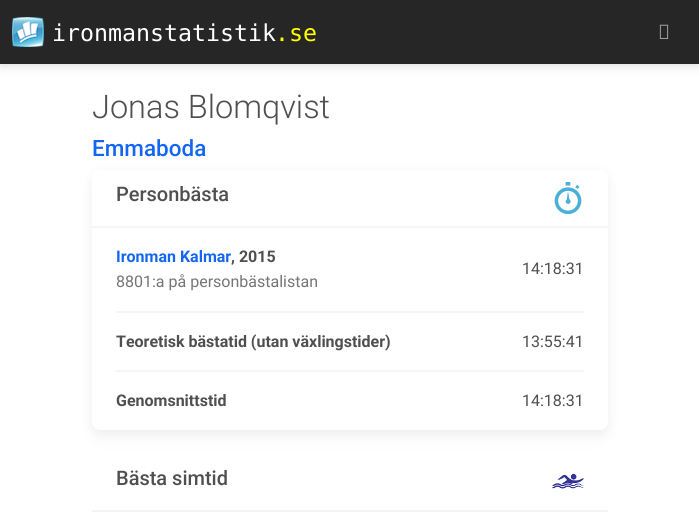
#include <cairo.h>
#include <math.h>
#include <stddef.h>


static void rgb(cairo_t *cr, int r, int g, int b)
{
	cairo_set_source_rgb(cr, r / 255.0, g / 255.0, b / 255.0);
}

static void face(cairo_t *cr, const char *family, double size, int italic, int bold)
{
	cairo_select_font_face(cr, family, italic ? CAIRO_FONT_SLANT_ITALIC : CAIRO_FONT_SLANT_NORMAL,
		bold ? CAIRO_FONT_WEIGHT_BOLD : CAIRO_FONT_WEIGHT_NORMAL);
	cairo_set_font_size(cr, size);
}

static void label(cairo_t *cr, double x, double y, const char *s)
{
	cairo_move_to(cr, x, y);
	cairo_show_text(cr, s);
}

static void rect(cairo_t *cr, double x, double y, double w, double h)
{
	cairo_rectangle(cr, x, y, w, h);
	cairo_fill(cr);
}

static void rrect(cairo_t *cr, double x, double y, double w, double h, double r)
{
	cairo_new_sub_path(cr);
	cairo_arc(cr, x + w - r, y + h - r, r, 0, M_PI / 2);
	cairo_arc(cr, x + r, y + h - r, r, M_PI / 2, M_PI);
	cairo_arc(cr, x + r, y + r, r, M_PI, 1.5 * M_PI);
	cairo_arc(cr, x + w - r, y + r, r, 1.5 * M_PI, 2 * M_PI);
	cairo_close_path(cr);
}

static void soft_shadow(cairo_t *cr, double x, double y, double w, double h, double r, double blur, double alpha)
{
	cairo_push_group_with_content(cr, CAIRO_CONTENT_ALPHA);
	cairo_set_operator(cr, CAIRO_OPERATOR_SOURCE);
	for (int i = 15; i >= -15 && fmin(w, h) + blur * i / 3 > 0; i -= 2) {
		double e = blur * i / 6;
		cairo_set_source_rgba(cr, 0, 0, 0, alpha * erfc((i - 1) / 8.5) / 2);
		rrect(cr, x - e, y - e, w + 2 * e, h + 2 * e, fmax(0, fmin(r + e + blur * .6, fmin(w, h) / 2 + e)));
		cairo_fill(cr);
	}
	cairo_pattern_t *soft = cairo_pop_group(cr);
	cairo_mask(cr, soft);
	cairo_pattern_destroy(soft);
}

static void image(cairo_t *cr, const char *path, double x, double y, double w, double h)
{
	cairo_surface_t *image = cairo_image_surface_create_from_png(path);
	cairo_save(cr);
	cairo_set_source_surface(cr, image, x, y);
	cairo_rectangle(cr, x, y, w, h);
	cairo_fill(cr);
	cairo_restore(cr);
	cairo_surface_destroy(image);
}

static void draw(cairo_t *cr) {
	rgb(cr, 255, 255, 255);
	cairo_paint(cr);
	rgb(cr, 0, 0, 0);
	soft_shadow(cr, 0, 2, 699, 64, 0, 2, 0.05);
	soft_shadow(cr, 0, 4, 699, 64, 0, 6, 0.07);
	rgb(cr, 38, 38, 38);
	rect(cr, 0, 0, 699, 64);
	image(cr, "image0.png", 12, 17, 32, 30);
	face(cr, "DejaVu Sans Mono", 23.25, 0, 0);
	rgb(cr, 255, 255, 255);
	label(cr, 52, 41, "ironmanstatistik");
	rgb(cr, 255, 255, 0);
	label(cr, 275, 41, ".se");
	image(cr, "image1.png", 659, 24, 10, 15);
	face(cr, "Roboto Light", 32.5, 0, 0);
	rgb(cr, 79, 79, 79);
	label(cr, 92, 118, "Jonas Blomqvist");
	face(cr, "Roboto Medium", 22.5, 0, 0);
	rgb(cr, 18, 102, 241);
	label(cr, 92, 156, "Emmaboda");
	rgb(cr, 0, 0, 0);
	soft_shadow(cr, 94, 182, 512, 256, 6, 10, 0.04);
	soft_shadow(cr, 95, 175, 510, 254, 5, 7.5, 0.07);
	rgb(cr, 255, 255, 255);
	rrect(cr, 92, 170, 516, 260, 8);
	cairo_fill(cr);
	rgb(cr, 245, 245, 245);
	rect(cr, 92, 226, 516, 2);
	face(cr, "Roboto Medium", 20, 0, 0);
	rgb(cr, 79, 79, 79);
	label(cr, 116, 201, "Personbästa");
	image(cr, "image2.png", 554, 182, 28, 32);
	rgb(cr, 245, 245, 245);
	rect(cr, 116, 311, 468, 2);
	face(cr, "Roboto", 16, 0, 1);
	rgb(cr, 18, 102, 241);
	label(cr, 116, 262, "Ironman Kalmar");
	rgb(cr, 79, 79, 79);
	label(cr, 231, 262, ", 2015");
	face(cr, "Roboto", 16, 0, 0);
	rgb(cr, 117, 117, 117);
	label(cr, 116, 287, "8801:a på personbästalistan");
	rgb(cr, 79, 79, 79);
	label(cr, 522, 274, "14:18:31");
	rgb(cr, 245, 245, 245);
	rect(cr, 116, 370, 468, 2);
	face(cr, "Roboto", 16, 0, 1);
	rgb(cr, 79, 79, 79);
	label(cr, 116, 347, "Teoretisk bästatid (utan växlingstider)");
	face(cr, "Roboto", 16, 0, 0);
	label(cr, 522, 347, "13:55:41");
	face(cr, "Roboto", 16, 0, 1);
	label(cr, 116, 406, "Genomsnittstid");
	face(cr, "Roboto", 16, 0, 0);
	label(cr, 522, 406, "14:18:31");
	rgb(cr, 245, 245, 245);
	rect(cr, 92, 510, 516, 2);
	face(cr, "Roboto Medium", 20, 0, 0);
	rgb(cr, 79, 79, 79);
	label(cr, 116, 485, "Bästa simtid");
	image(cr, "image3.png", 552, 473, 32, 16);
}

int main(void) {
	cairo_surface_t *surface = cairo_image_surface_create(CAIRO_FORMAT_RGB24, 699, 514);
	cairo_t *cr = cairo_create(surface);
	cairo_font_options_t *options = cairo_font_options_create();
	cairo_font_options_set_hint_metrics(options, CAIRO_HINT_METRICS_OFF);
	cairo_font_options_set_hint_style(options, CAIRO_HINT_STYLE_NONE);
	cairo_set_font_options(cr, options);
	cairo_set_miter_limit(cr, 4);
	draw(cr);
	cairo_surface_write_to_png(surface, "render.png");
	cairo_font_options_destroy(options);
	cairo_destroy(cr);
	cairo_surface_destroy(surface);
	return 0;
}
